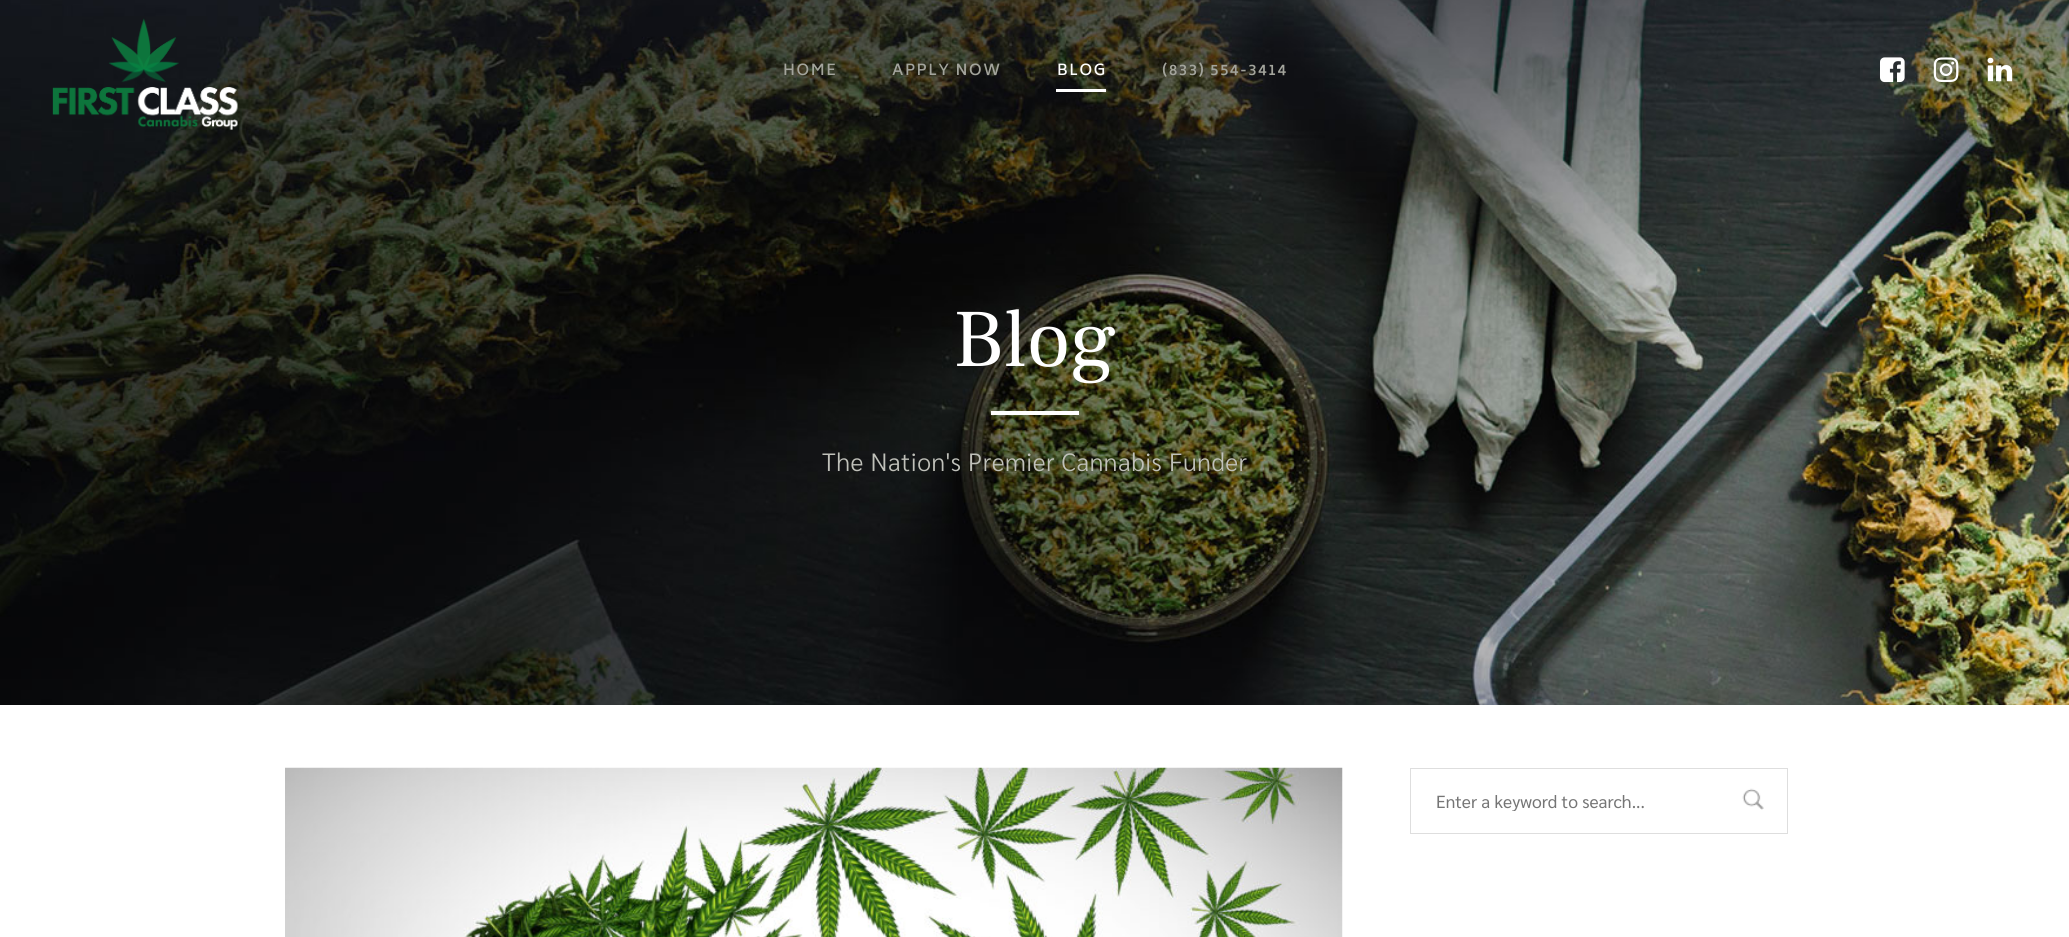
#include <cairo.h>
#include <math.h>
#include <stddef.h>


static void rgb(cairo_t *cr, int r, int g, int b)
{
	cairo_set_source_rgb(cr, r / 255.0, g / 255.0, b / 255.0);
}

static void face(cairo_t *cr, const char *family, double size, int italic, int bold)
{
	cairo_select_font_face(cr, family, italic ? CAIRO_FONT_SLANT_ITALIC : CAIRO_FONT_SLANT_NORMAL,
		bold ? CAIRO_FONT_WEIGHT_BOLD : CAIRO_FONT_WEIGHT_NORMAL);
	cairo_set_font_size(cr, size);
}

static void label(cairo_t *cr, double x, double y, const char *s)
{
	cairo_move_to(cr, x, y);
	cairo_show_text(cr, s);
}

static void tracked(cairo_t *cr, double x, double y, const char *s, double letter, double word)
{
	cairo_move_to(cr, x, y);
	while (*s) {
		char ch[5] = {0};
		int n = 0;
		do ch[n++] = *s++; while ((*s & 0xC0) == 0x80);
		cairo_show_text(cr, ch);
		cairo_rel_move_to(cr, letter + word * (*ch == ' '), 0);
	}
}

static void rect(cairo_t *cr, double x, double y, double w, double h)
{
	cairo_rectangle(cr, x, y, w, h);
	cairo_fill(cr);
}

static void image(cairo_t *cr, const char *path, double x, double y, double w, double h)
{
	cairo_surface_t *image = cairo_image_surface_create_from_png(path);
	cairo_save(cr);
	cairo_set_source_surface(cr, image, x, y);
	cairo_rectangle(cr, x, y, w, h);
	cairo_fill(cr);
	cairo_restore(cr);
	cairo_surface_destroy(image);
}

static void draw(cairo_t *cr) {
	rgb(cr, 255, 255, 255);
	cairo_paint(cr);
	image(cr, "image4.png", 0, 0, 2069, 705);
	image(cr, "image0.png", 52, 18, 186, 112);
	face(cr, "Biryani SemiBold", 15, 0, 0);
	rgb(cr, 163, 164, 156);
	tracked(cr, 783, 75, "HOME", 1.6, 0);
	tracked(cr, 892, 75, "APPLY NOW", 1.6, 0);
	rgb(cr, 255, 255, 255);
	tracked(cr, 1057, 75, "BLOG", 1.6, 0);
	rect(cr, 1056, 89, 50, 3);
	rgb(cr, 163, 164, 156);
	tracked(cr, 1162, 75, "(833) 554-3414", 1.6, 0);
	image(cr, "image1.png", 1880, 57, 25, 26);
	image(cr, "image2.png", 1933, 57, 26, 26);
	image(cr, "image3.png", 1987, 57, 26, 25);
	face(cr, "Frank Ruhl Libre", 82, 0, 0);
	rgb(cr, 255, 255, 255);
	label(cr, 953, 366, "Blog");
	rect(cr, 991, 411, 88, 4);
	face(cr, "Sarabun Light", 25, 0, 0);
	rgb(cr, 192, 193, 186);
	tracked(cr, 822, 471, "The Nation's Premier Cannabis Funder", 0.5, 0);
	image(cr, "image5.png", 285, 767, 1058, 170);
	image(cr, "image6.png", 1742, 788, 22, 22);
	cairo_rectangle(cr, 1410.5, 768.5, 377, 65);
	rgb(cr, 222, 222, 222);
	cairo_set_line_width(cr, 1);
	cairo_stroke(cr);
	cairo_save(cr);
	cairo_rectangle(cr, 1436, 789, 283, 22);
	cairo_clip(cr);
	face(cr, "Sarabun", 17.5, 0, 0);
	rgb(cr, 117, 117, 117);
	label(cr, 1436, 808, "Enter a keyword to search...");
	cairo_restore(cr);
}

int main(void) {
	cairo_surface_t *surface = cairo_image_surface_create(CAIRO_FORMAT_RGB24, 2069, 937);
	cairo_t *cr = cairo_create(surface);
	cairo_font_options_t *options = cairo_font_options_create();
	cairo_font_options_set_hint_metrics(options, CAIRO_HINT_METRICS_OFF);
	cairo_font_options_set_hint_style(options, CAIRO_HINT_STYLE_NONE);
	cairo_set_font_options(cr, options);
	cairo_set_miter_limit(cr, 4);
	draw(cr);
	cairo_surface_write_to_png(surface, "render.png");
	cairo_font_options_destroy(options);
	cairo_destroy(cr);
	cairo_surface_destroy(surface);
	return 0;
}
